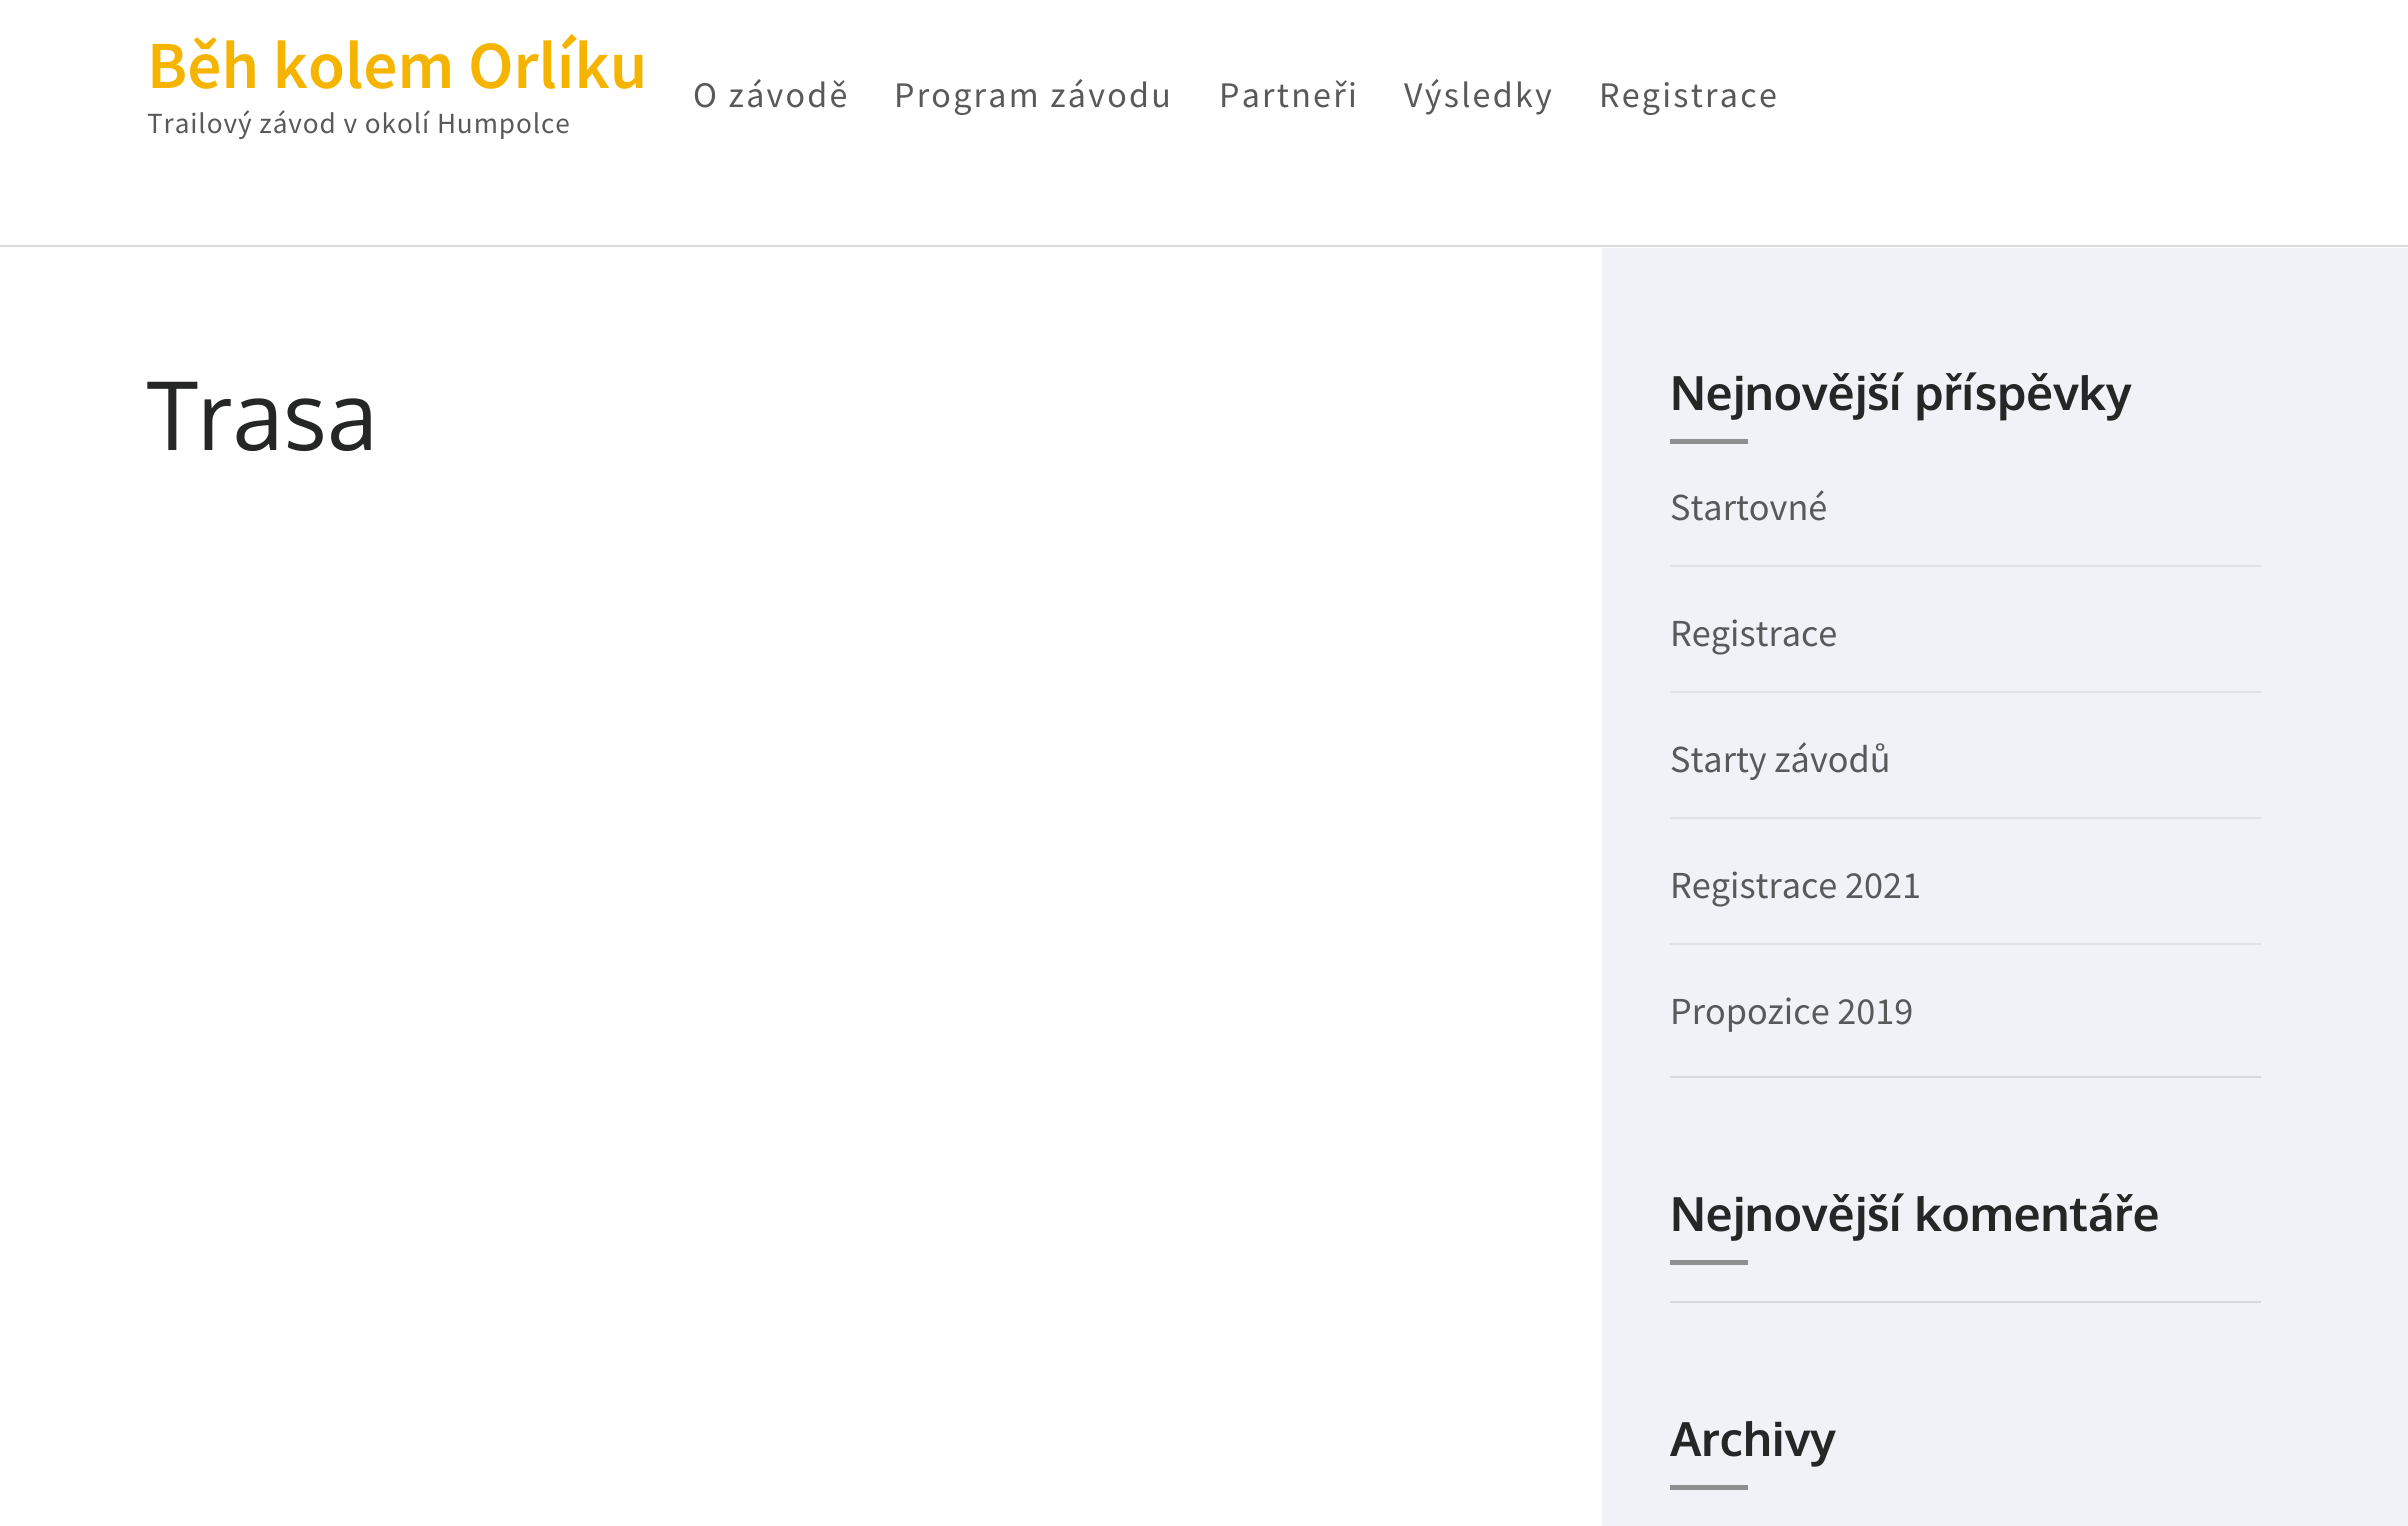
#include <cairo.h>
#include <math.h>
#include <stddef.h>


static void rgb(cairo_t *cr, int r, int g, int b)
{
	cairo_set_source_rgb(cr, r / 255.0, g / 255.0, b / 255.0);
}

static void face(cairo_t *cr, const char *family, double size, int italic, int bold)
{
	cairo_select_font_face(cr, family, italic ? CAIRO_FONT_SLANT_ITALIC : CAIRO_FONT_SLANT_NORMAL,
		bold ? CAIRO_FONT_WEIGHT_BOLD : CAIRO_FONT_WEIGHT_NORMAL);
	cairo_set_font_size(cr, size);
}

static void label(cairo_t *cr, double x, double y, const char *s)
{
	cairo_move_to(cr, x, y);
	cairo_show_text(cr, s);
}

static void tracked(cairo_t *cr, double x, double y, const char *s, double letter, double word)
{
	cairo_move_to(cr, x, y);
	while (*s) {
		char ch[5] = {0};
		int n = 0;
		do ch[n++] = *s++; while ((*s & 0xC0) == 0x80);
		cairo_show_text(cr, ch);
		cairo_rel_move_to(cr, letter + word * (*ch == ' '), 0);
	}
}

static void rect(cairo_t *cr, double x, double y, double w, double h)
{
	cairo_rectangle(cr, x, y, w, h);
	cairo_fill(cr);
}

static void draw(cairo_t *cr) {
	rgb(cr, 255, 255, 255);
	cairo_paint(cr);
	face(cr, "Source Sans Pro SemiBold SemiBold", 67.5, 0, 0);
	rgb(cr, 244, 180, 0);
	label(cr, 147, 88, "Běh kolem Orlíku");
	face(cr, "Source Sans Pro", 29.25, 0, 0);
	rgb(cr, 89, 89, 91);
	tracked(cr, 147, 133, "Trailový závod v okolí Humpolce", 0.9, 0);
	face(cr, "Source Sans Pro", 36, 0, 0);
	tracked(cr, 693, 107, "O závodě", 2.25, 0);
	tracked(cr, 894, 107, "Program závodu", 2.25, 0);
	tracked(cr, 1219, 107, "Partneři", 2.25, 0);
	tracked(cr, 1404, 107, "Výsledky", 2.25, 0);
	tracked(cr, 1599, 107, "Registrace", 2.25, 0);
	rgb(cr, 217, 219, 222);
	rect(cr, 0, 245, 2408, 2);
	face(cr, "Oxygen", 94.5, 0, 0);
	rgb(cr, 37, 38, 38);
	label(cr, 147, 450, "Trasa");
	rgb(cr, 240, 242, 247);
	rect(cr, 1602, 248, 806, 1278);
	rgb(cr, 214, 216, 221);
	rect(cr, 1670, 1076, 591, 2);
	face(cr, "Oxygen", 47.25, 0, 1);
	rgb(cr, 37, 38, 38);
	label(cr, 1670, 410, "Nejnovější příspěvky");
	rgb(cr, 142, 143, 145);
	rect(cr, 1670, 439, 78, 5);
	rgb(cr, 224, 225, 229);
	rect(cr, 1670, 565, 591, 2);
	face(cr, "Source Sans Pro", 38.25, 0, 0);
	rgb(cr, 89, 89, 91);
	label(cr, 1670, 520, "Startovné");
	rgb(cr, 224, 225, 229);
	rect(cr, 1670, 691, 591, 2);
	rgb(cr, 89, 89, 91);
	label(cr, 1670, 646, "Registrace");
	rgb(cr, 224, 225, 229);
	rect(cr, 1670, 817, 591, 2);
	rgb(cr, 89, 89, 91);
	label(cr, 1670, 772, "Starty závodů");
	rgb(cr, 224, 225, 229);
	rect(cr, 1670, 943, 591, 2);
	rgb(cr, 89, 89, 91);
	label(cr, 1670, 898, "Registrace 2021");
	label(cr, 1670, 1024, "Propozice 2019");
	rgb(cr, 214, 216, 221);
	rect(cr, 1670, 1301, 591, 2);
	face(cr, "Oxygen", 47.25, 0, 1);
	rgb(cr, 37, 38, 38);
	label(cr, 1670, 1231, "Nejnovější komentáře");
	rgb(cr, 142, 143, 145);
	rect(cr, 1670, 1260, 78, 5);
	rgb(cr, 37, 38, 38);
	label(cr, 1670, 1456, "Archivy");
	rgb(cr, 142, 143, 145);
	rect(cr, 1670, 1485, 78, 5);
}

int main(void) {
	cairo_surface_t *surface = cairo_image_surface_create(CAIRO_FORMAT_RGB24, 2408, 1526);
	cairo_t *cr = cairo_create(surface);
	cairo_font_options_t *options = cairo_font_options_create();
	cairo_font_options_set_hint_metrics(options, CAIRO_HINT_METRICS_OFF);
	cairo_font_options_set_hint_style(options, CAIRO_HINT_STYLE_NONE);
	cairo_set_font_options(cr, options);
	cairo_set_miter_limit(cr, 4);
	draw(cr);
	cairo_surface_write_to_png(surface, "render.png");
	cairo_font_options_destroy(options);
	cairo_destroy(cr);
	cairo_surface_destroy(surface);
	return 0;
}
